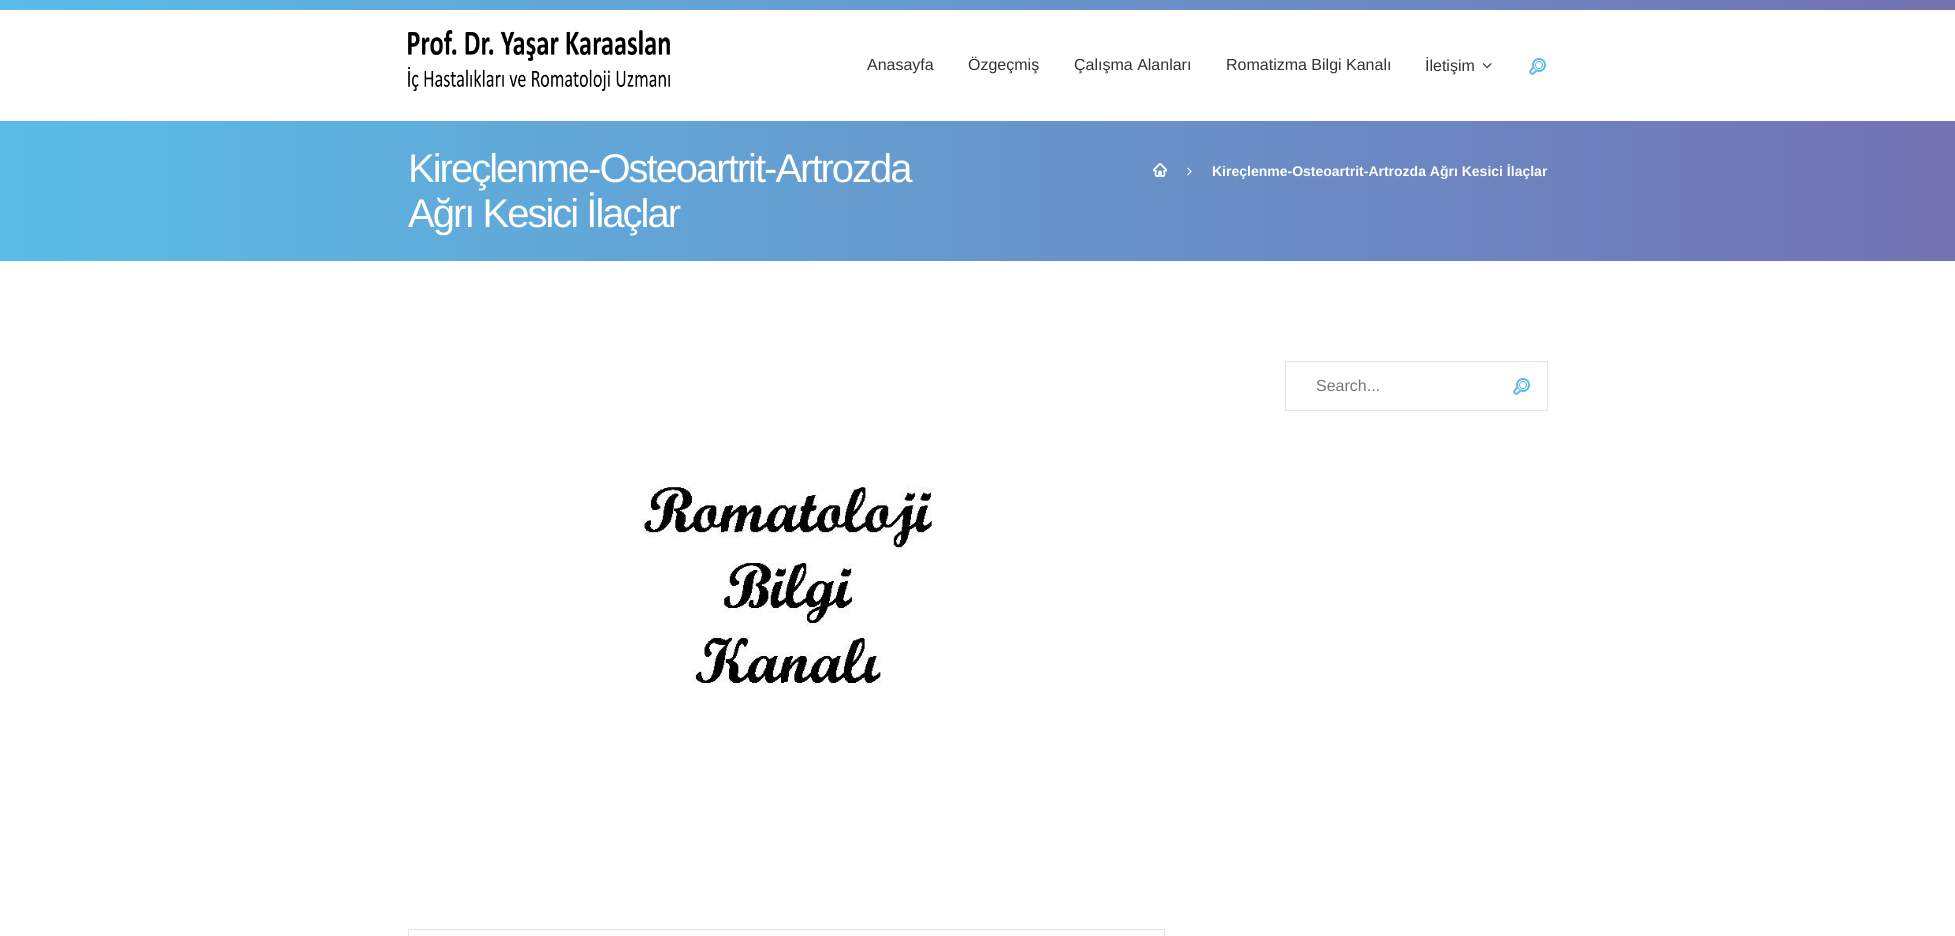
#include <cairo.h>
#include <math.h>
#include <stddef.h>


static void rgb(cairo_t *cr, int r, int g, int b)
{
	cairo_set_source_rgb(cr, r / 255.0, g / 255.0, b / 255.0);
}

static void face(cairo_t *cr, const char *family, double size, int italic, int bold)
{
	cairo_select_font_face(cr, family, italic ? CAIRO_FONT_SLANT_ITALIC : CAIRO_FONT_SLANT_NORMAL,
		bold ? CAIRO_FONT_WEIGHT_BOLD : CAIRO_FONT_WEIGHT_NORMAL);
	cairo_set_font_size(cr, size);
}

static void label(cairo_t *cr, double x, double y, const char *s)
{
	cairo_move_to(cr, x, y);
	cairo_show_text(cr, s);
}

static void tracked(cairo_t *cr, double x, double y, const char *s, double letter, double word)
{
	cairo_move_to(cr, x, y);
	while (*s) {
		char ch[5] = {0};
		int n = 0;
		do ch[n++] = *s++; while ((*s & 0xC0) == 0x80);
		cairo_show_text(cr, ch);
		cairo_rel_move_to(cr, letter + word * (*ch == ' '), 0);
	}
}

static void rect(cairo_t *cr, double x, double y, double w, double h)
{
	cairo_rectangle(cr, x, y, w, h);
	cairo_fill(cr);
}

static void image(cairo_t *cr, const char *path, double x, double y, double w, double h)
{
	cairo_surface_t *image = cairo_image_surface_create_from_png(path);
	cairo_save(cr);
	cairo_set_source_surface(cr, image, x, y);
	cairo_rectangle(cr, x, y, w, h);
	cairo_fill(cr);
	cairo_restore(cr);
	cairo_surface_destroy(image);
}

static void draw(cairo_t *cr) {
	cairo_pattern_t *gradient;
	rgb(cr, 255, 255, 255);
	cairo_paint(cr);
	gradient = cairo_pattern_create_linear(0, 5, 1955, 5);
	cairo_pattern_add_color_stop_rgba(gradient, 0, 0.353, 0.741, 0.906, 1);
	cairo_pattern_add_color_stop_rgba(gradient, 1, 0.451, 0.447, 0.702, 1);
	cairo_set_source(cr, gradient);
	cairo_pattern_destroy(gradient);
	rect(cr, 0, 0, 1955, 10);
	image(cr, "image0.png", 408, 30, 262, 61);
	face(cr, "Liberation Sans", 16, 0, 0);
	rgb(cr, 50, 50, 50);
	label(cr, 867, 70, "Anasayfa");
	label(cr, 968, 70, "Özgeçmiş");
	label(cr, 1074, 70, "Çalışma Alanları");
	label(cr, 1226, 70, "Romatizma Bilgi Kanalı");
	label(cr, 1425, 71, "İletişim");
	image(cr, "image1.png", 1482, 63, 10, 6);
	image(cr, "image2.png", 1529, 58, 17, 17);
	gradient = cairo_pattern_create_linear(0, 191, 1955, 191);
	cairo_pattern_add_color_stop_rgba(gradient, 0, 0.353, 0.741, 0.906, 1);
	cairo_pattern_add_color_stop_rgba(gradient, 1, 0.451, 0.447, 0.702, 1);
	cairo_set_source(cr, gradient);
	cairo_pattern_destroy(gradient);
	rect(cr, 0, 121, 1955, 140);
	face(cr, "Liberation Sans", 40, 0, 0);
	rgb(cr, 255, 255, 255);
	tracked(cr, 408, 182, "Kireçlenme-Osteoartrit-Artrozda", -2, 0);
	tracked(cr, 408, 227, "Ağrı Kesici İlaçlar", -2, 0);
	image(cr, "image3.png", 1153, 163, 14, 14);
	image(cr, "image4.png", 1187, 167, 5, 9);
	face(cr, "Liberation Sans", 14, 0, 1);
	label(cr, 1212, 176, "Kireçlenme-Osteoartrit-Artrozda Ağrı Kesici İlaçlar");
	cairo_rectangle(cr, 1285.5, 361.5, 262, 49);
	rgb(cr, 229, 229, 229);
	cairo_set_line_width(cr, 1);
	cairo_stroke(cr);
	face(cr, "Liberation Sans", 16, 0, 0);
	rgb(cr, 117, 117, 117);
	label(cr, 1316, 391, "Search...");
	image(cr, "image2.png", 1513, 378, 17, 17);
	image(cr, "image5.png", 641, 487, 291, 196);
	cairo_rectangle(cr, 408.5, 929.5, 756, 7);
	rgb(cr, 229, 229, 229);
	cairo_stroke(cr);
}

int main(void) {
	cairo_surface_t *surface = cairo_image_surface_create(CAIRO_FORMAT_RGB24, 1955, 936);
	cairo_t *cr = cairo_create(surface);
	cairo_font_options_t *options = cairo_font_options_create();
	cairo_font_options_set_hint_metrics(options, CAIRO_HINT_METRICS_OFF);
	cairo_font_options_set_hint_style(options, CAIRO_HINT_STYLE_NONE);
	cairo_set_font_options(cr, options);
	cairo_set_miter_limit(cr, 4);
	draw(cr);
	cairo_surface_write_to_png(surface, "render.png");
	cairo_font_options_destroy(options);
	cairo_destroy(cr);
	cairo_surface_destroy(surface);
	return 0;
}
